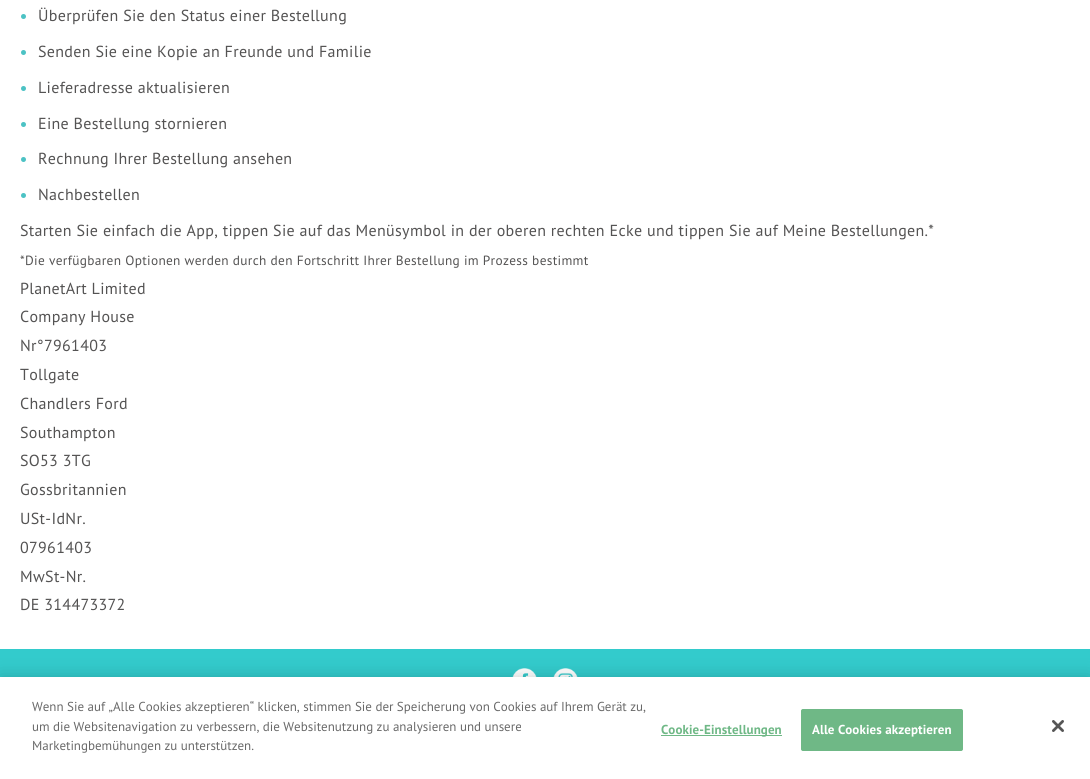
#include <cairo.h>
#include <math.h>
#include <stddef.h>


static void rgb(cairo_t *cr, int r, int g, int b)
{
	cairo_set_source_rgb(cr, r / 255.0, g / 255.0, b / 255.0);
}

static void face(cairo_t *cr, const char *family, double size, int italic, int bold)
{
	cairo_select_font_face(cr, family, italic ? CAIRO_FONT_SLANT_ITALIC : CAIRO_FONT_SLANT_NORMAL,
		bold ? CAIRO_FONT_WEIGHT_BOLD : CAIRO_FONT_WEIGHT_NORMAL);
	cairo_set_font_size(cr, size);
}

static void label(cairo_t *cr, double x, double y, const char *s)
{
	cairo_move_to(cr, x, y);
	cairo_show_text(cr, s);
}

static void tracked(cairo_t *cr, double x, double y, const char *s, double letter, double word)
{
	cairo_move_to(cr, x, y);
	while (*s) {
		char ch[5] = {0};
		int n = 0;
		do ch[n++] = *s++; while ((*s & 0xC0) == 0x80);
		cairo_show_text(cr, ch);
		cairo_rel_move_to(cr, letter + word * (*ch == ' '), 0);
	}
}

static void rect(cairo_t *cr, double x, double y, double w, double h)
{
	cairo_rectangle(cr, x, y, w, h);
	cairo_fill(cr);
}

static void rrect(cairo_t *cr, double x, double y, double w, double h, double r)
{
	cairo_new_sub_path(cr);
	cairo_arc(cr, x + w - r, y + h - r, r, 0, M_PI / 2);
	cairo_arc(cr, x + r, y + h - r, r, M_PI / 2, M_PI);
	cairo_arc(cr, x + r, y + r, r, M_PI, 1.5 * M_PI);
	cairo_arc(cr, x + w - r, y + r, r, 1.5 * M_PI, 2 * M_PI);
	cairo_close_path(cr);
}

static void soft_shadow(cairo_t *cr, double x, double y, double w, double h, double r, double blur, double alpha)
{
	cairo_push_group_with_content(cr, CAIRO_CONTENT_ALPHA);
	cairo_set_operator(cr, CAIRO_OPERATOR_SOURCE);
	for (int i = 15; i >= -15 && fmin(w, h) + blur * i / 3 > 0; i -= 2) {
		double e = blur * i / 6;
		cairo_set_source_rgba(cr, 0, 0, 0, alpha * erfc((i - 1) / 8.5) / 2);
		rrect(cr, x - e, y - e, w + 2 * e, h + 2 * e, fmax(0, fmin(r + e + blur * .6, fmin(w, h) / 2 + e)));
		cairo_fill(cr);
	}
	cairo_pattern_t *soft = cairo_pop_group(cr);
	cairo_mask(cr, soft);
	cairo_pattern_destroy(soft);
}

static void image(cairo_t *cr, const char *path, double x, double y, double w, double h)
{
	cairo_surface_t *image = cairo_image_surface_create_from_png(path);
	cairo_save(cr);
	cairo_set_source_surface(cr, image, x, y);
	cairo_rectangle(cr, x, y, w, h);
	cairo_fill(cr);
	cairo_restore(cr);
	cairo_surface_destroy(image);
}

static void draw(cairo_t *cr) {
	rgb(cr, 255, 255, 255);
	cairo_paint(cr);
	rgb(cr, 76, 194, 196);
	cairo_arc(cr, 23.5, 16.5, 2.5, 0, 2 * M_PI);
	cairo_fill(cr);
	face(cr, "PT Sans", 16, 0, 0);
	rgb(cr, 84, 83, 83);
	tracked(cr, 38, 21, "Überprüfen Sie den Status einer Bestellung", 0.32, 0);
	rgb(cr, 76, 194, 196);
	cairo_new_path(cr);
	cairo_arc(cr, 23.5, 52.5, 2.5, 0, 2 * M_PI);
	cairo_fill(cr);
	rgb(cr, 84, 83, 83);
	tracked(cr, 38, 57, "Senden Sie eine Kopie an Freunde und Familie", 0.32, 0);
	rgb(cr, 76, 194, 196);
	cairo_new_path(cr);
	cairo_arc(cr, 23.5, 88.5, 2.5, 0, 2 * M_PI);
	cairo_fill(cr);
	rgb(cr, 84, 83, 83);
	tracked(cr, 38, 93, "Lieferadresse aktualisieren", 0.32, 0);
	rgb(cr, 76, 194, 196);
	cairo_new_path(cr);
	cairo_arc(cr, 23.5, 124.5, 2.5, 0, 2 * M_PI);
	cairo_fill(cr);
	rgb(cr, 84, 83, 83);
	tracked(cr, 38, 129, "Eine Bestellung stornieren", 0.32, 0);
	rgb(cr, 76, 194, 196);
	cairo_new_path(cr);
	cairo_arc(cr, 23.5, 159.5, 2.5, 0, 2 * M_PI);
	cairo_fill(cr);
	rgb(cr, 84, 83, 83);
	tracked(cr, 38, 164, "Rechnung Ihrer Bestellung ansehen", 0.32, 0);
	rgb(cr, 76, 194, 196);
	cairo_new_path(cr);
	cairo_arc(cr, 23.5, 195.5, 2.5, 0, 2 * M_PI);
	cairo_fill(cr);
	rgb(cr, 84, 83, 83);
	tracked(cr, 38, 200, "Nachbestellen", 0.32, 0);
	tracked(cr, 20, 236, "Starten Sie einfach die App, tippen Sie auf das Menüsymbol in der oberen rechten Ecke und tippen Sie auf Meine Bestellungen.*", 0.32, 0);
	face(cr, "PT Sans", 13.35, 0, 0);
	tracked(cr, 20, 265, "*Die verfügbaren Optionen werden durch den Fortschritt Ihrer Bestellung im Prozess bestimmt", 0.32, 0);
	face(cr, "PT Sans", 16, 0, 0);
	tracked(cr, 20, 294, "PlanetArt Limited", 0.32, 0);
	tracked(cr, 20, 322, "Company House", 0.32, 0);
	tracked(cr, 20, 351, "Nr°7961403", 0.32, 0);
	tracked(cr, 20, 380, "Tollgate", 0.32, 0);
	tracked(cr, 20, 409, "Chandlers Ford", 0.32, 0);
	tracked(cr, 20, 438, "Southampton", 0.32, 0);
	tracked(cr, 20, 466, "SO53 3TG", 0.32, 0);
	tracked(cr, 20, 495, "Gossbritannien", 0.32, 0);
	tracked(cr, 20, 524, "USt-IdNr.", 0.32, 0);
	tracked(cr, 20, 553, "07961403", 0.32, 0);
	tracked(cr, 20, 582, "MwSt-Nr.", 0.32, 0);
	tracked(cr, 20, 610, "DE 314473372", 0.32, 0);
	rgb(cr, 51, 203, 204);
	rect(cr, 0, 649, 1090, 28);
	image(cr, "image0.png", 512, 668, 25, 9);
	image(cr, "image1.png", 553, 668, 25, 9);
	rgb(cr, 0, 0, 0);
	soft_shadow(cr, 0, 677, 1090, 102, 0, 9, 0.2);
	rgb(cr, 255, 255, 255);
	rect(cr, 0, 677, 1090, 102);
	face(cr, "PT Sans", 13, 0, 0);
	rgb(cr, 105, 105, 105);
	label(cr, 32, 711, "Wenn Sie auf „Alle Cookies akzeptieren“ klicken, stimmen Sie der Speicherung von Cookies auf Ihrem Gerät zu,");
	label(cr, 32, 731, "um die Websitenavigation zu verbessern, die Websitenutzung zu analysieren und unsere");
	label(cr, 32, 750, "Marketingbemühungen zu unterstützen.");
	rgb(cr, 111, 184, 134);
	rect(cr, 661, 735, 121, 1);
	face(cr, "PT Sans", 13, 0, 1);
	tracked(cr, 661, 734, "Cookie-Einstellungen", 0.1, 0);
	rrect(cr, 801.5, 709.5, 161, 41, 1.5);
	cairo_fill_preserve(cr);
	cairo_set_line_width(cr, 1);
	cairo_stroke(cr);
	rgb(cr, 255, 255, 255);
	tracked(cr, 812, 734, "Alle Cookies akzeptieren", 0.1, 0);
	image(cr, "image2.png", 1052, 720, 12, 12);
}

int main(void) {
	cairo_surface_t *surface = cairo_image_surface_create(CAIRO_FORMAT_RGB24, 1090, 779);
	cairo_t *cr = cairo_create(surface);
	cairo_font_options_t *options = cairo_font_options_create();
	cairo_font_options_set_hint_metrics(options, CAIRO_HINT_METRICS_OFF);
	cairo_font_options_set_hint_style(options, CAIRO_HINT_STYLE_NONE);
	cairo_set_font_options(cr, options);
	cairo_set_miter_limit(cr, 4);
	draw(cr);
	cairo_surface_write_to_png(surface, "render.png");
	cairo_font_options_destroy(options);
	cairo_destroy(cr);
	cairo_surface_destroy(surface);
	return 0;
}
